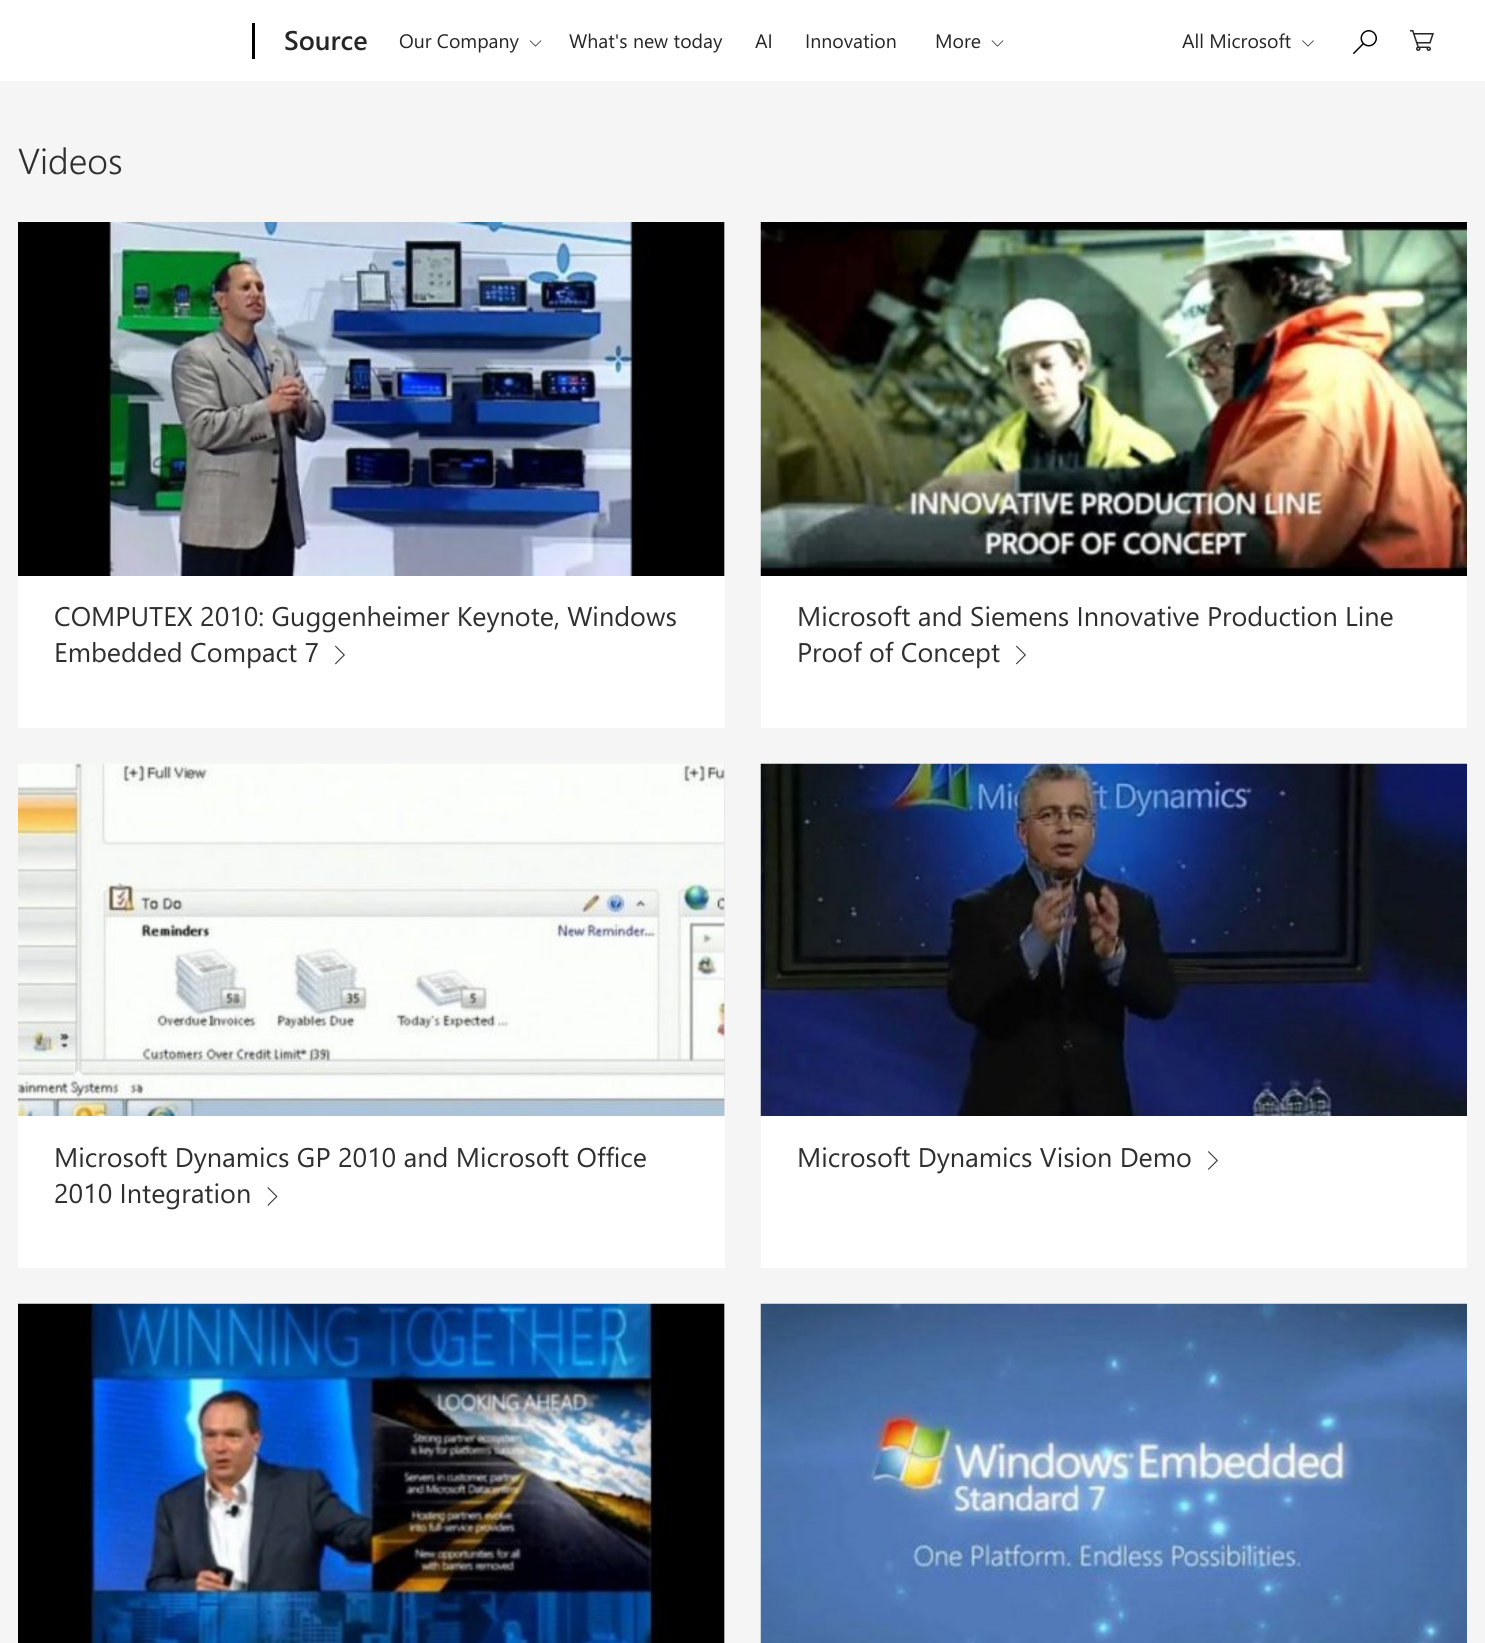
#include <cairo.h>
#include <math.h>
#include <stddef.h>


static void rgb(cairo_t *cr, int r, int g, int b)
{
	cairo_set_source_rgb(cr, r / 255.0, g / 255.0, b / 255.0);
}

static void face(cairo_t *cr, const char *family, double size, int italic, int bold)
{
	cairo_select_font_face(cr, family, italic ? CAIRO_FONT_SLANT_ITALIC : CAIRO_FONT_SLANT_NORMAL,
		bold ? CAIRO_FONT_WEIGHT_BOLD : CAIRO_FONT_WEIGHT_NORMAL);
	cairo_set_font_size(cr, size);
}

static void label(cairo_t *cr, double x, double y, const char *s)
{
	cairo_move_to(cr, x, y);
	cairo_show_text(cr, s);
}

static void rect(cairo_t *cr, double x, double y, double w, double h)
{
	cairo_rectangle(cr, x, y, w, h);
	cairo_fill(cr);
}

static void image(cairo_t *cr, const char *path, double x, double y, double w, double h)
{
	cairo_surface_t *image = cairo_image_surface_create_from_png(path);
	cairo_save(cr);
	cairo_set_source_surface(cr, image, x, y);
	cairo_rectangle(cr, x, y, w, h);
	cairo_fill(cr);
	cairo_restore(cr);
	cairo_surface_destroy(image);
}

static void draw(cairo_t *cr) {
	rgb(cr, 245, 245, 245);
	cairo_paint(cr);
	rgb(cr, 255, 255, 255);
	rect(cr, 0, 0, 1485, 81);
	rgb(cr, 0, 0, 0);
	rect(cr, 252, 23, 3, 36);
	face(cr, "Segoe UI SemiBold", 27, 0, 0);
	rgb(cr, 38, 38, 38);
	label(cr, 284, 50, "Source");
	face(cr, "Segoe UI", 19.5, 0, 0);
	label(cr, 399, 48, "Our Company");
	image(cr, "image0.png", 529, 40, 13, 7);
	label(cr, 569, 48, "What's new today");
	label(cr, 755, 48, "AI");
	label(cr, 805, 48, "Innovation");
	label(cr, 935, 48, "More");
	image(cr, "image0.png", 991, 40, 13, 7);
	label(cr, 1182, 48, "All Microsoft");
	image(cr, "image1.png", 1302, 40, 12, 7);
	image(cr, "image2.png", 1353, 30, 24, 24);
	image(cr, "image3.png", 1410, 30, 24, 21);
	face(cr, "Segoe UI Light", 36, 0, 0);
	rgb(cr, 47, 47, 47);
	label(cr, 18, 174, "Videos");
	rgb(cr, 227, 227, 227);
	rect(cr, 724, 222, 1, 354);
	image(cr, "image4.png", 18, 222, 707, 354);
	rgb(cr, 255, 255, 255);
	rect(cr, 18, 576, 707, 152);
	face(cr, "Segoe UI", 27, 0, 0);
	rgb(cr, 47, 47, 47);
	label(cr, 54, 626, "COMPUTEX 2010: Guggenheimer Keynote, Windows");
	label(cr, 54, 662, "Embedded Compact 7");
	cairo_new_path(cr);
	cairo_move_to(cr, 335, 663.5);
	cairo_line_to(cr, 343.5, 655);
	cairo_line_to(cr, 335, 646.5);
	cairo_line_to(cr, 335.5, 645.5);
	cairo_line_to(cr, 345, 655);
	cairo_line_to(cr, 335.5, 664.5);
	cairo_close_path(cr);
	cairo_fill(cr);
	image(cr, "image5.png", 760, 222, 707, 354);
	rgb(cr, 255, 255, 255);
	rect(cr, 761, 576, 706, 152);
	rgb(cr, 47, 47, 47);
	label(cr, 797, 626, "Microsoft and Siemens Innovative Production Line");
	label(cr, 797, 662, "Proof of Concept");
	cairo_new_path(cr);
	cairo_move_to(cr, 1016, 663.5);
	cairo_line_to(cr, 1024.5, 655);
	cairo_line_to(cr, 1016, 646.5);
	cairo_line_to(cr, 1016.5, 645.5);
	cairo_line_to(cr, 1026, 655);
	cairo_line_to(cr, 1016.5, 664.5);
	cairo_close_path(cr);
	cairo_fill(cr);
	rgb(cr, 227, 227, 227);
	rect(cr, 724, 764, 1, 352);
	image(cr, "image6.png", 18, 763, 707, 353);
	rgb(cr, 255, 255, 255);
	rect(cr, 18, 1116, 707, 152);
	rgb(cr, 47, 47, 47);
	label(cr, 54, 1167, "Microsoft Dynamics GP 2010 and Microsoft Office");
	label(cr, 54, 1203, "2010 Integration");
	cairo_new_path(cr);
	cairo_move_to(cr, 267.5, 1205);
	cairo_line_to(cr, 276, 1196.5);
	cairo_line_to(cr, 267.5, 1188);
	cairo_line_to(cr, 268, 1187);
	cairo_line_to(cr, 277.5, 1196.5);
	cairo_line_to(cr, 268, 1206);
	cairo_close_path(cr);
	cairo_fill(cr);
	image(cr, "image7.png", 760, 763, 707, 353);
	rgb(cr, 255, 255, 255);
	rect(cr, 761, 1116, 706, 152);
	rgb(cr, 47, 47, 47);
	label(cr, 797, 1167, "Microsoft Dynamics Vision Demo");
	cairo_new_path(cr);
	cairo_move_to(cr, 1208, 1169);
	cairo_line_to(cr, 1216.5, 1160.5);
	cairo_line_to(cr, 1208, 1152);
	cairo_line_to(cr, 1208.5, 1151);
	cairo_line_to(cr, 1218, 1160.5);
	cairo_line_to(cr, 1208.5, 1170);
	cairo_close_path(cr);
	cairo_fill(cr);
	rgb(cr, 227, 227, 227);
	rect(cr, 724, 1304, 1, 339);
	image(cr, "image8.png", 18, 1303, 707, 340);
	image(cr, "image9.png", 760, 1303, 707, 340);
}

int main(void) {
	cairo_surface_t *surface = cairo_image_surface_create(CAIRO_FORMAT_RGB24, 1485, 1643);
	cairo_t *cr = cairo_create(surface);
	cairo_font_options_t *options = cairo_font_options_create();
	cairo_font_options_set_hint_metrics(options, CAIRO_HINT_METRICS_OFF);
	cairo_font_options_set_hint_style(options, CAIRO_HINT_STYLE_NONE);
	cairo_set_font_options(cr, options);
	cairo_set_miter_limit(cr, 4);
	draw(cr);
	cairo_surface_write_to_png(surface, "render.png");
	cairo_font_options_destroy(options);
	cairo_destroy(cr);
	cairo_surface_destroy(surface);
	return 0;
}
